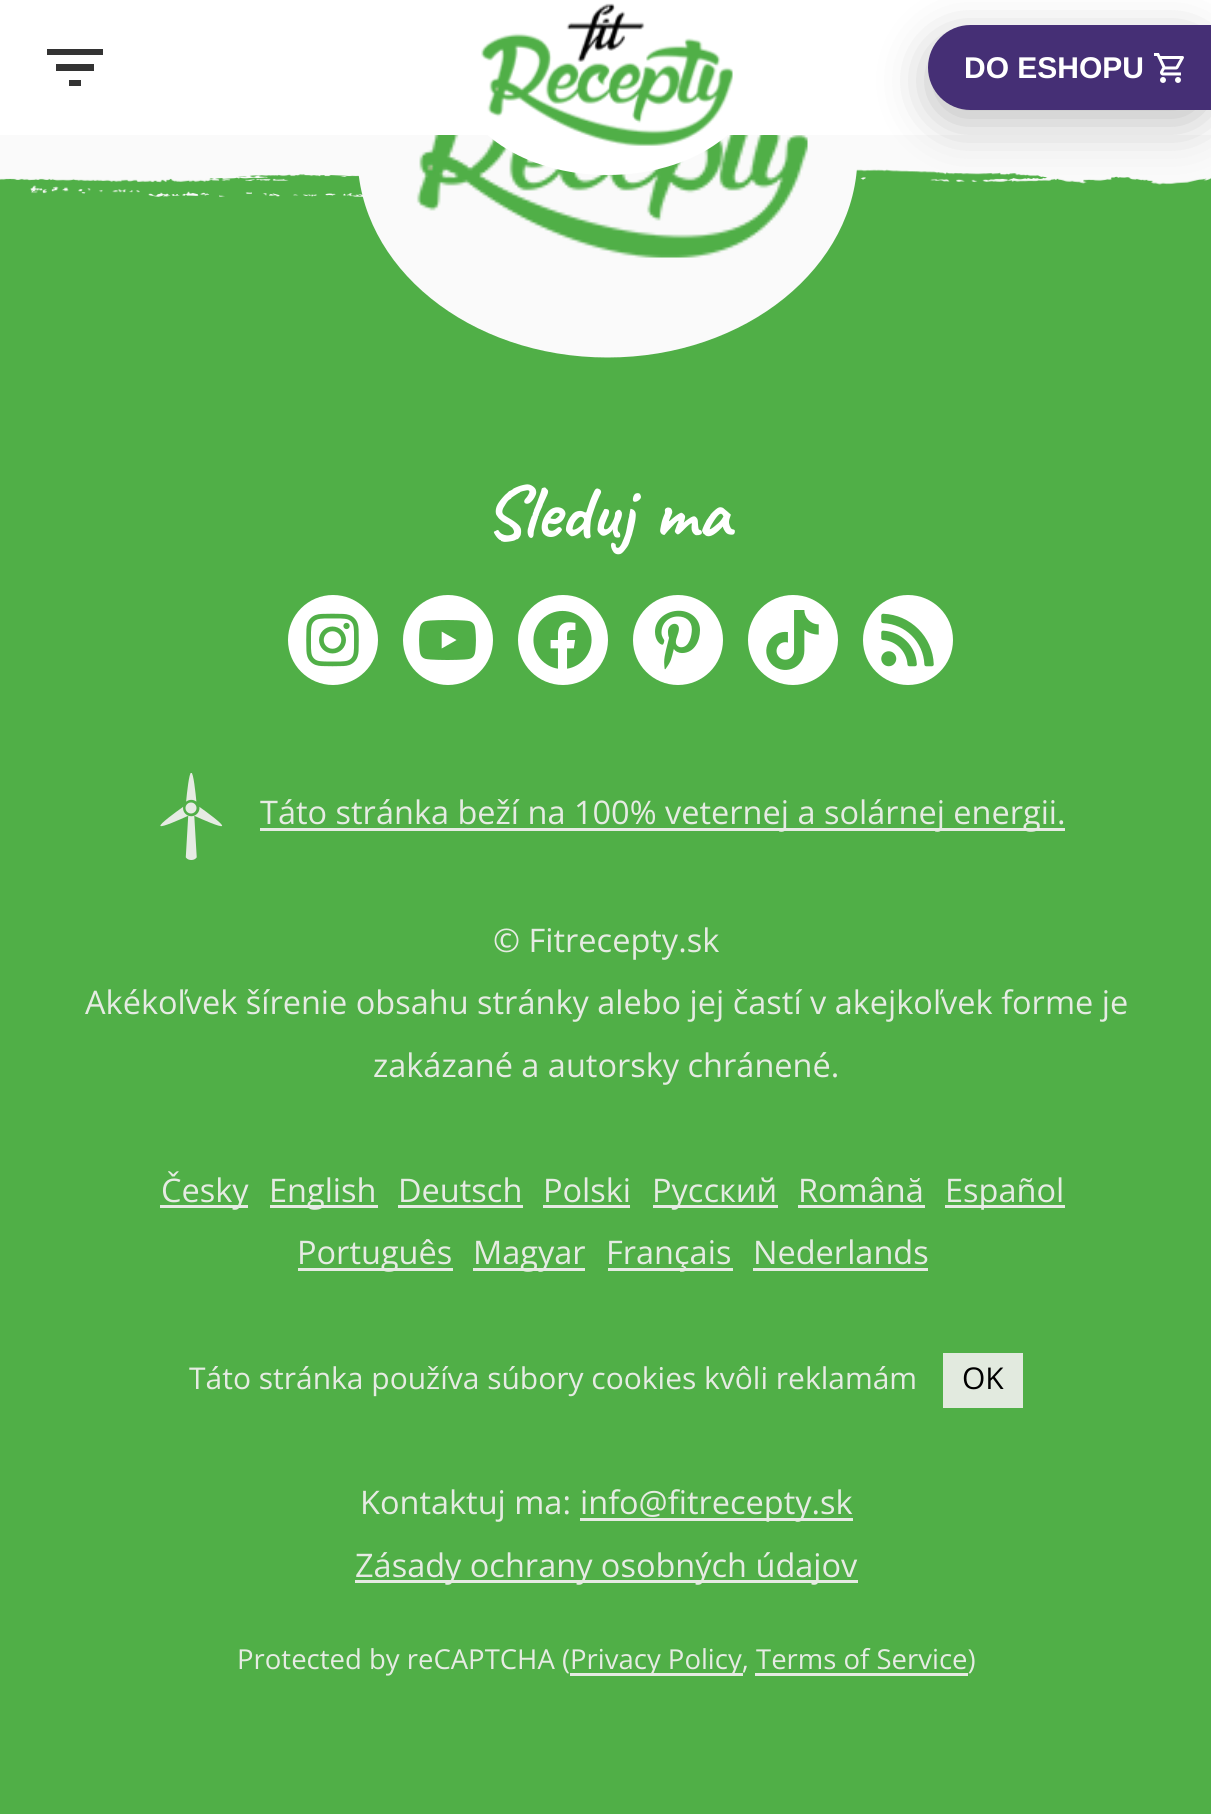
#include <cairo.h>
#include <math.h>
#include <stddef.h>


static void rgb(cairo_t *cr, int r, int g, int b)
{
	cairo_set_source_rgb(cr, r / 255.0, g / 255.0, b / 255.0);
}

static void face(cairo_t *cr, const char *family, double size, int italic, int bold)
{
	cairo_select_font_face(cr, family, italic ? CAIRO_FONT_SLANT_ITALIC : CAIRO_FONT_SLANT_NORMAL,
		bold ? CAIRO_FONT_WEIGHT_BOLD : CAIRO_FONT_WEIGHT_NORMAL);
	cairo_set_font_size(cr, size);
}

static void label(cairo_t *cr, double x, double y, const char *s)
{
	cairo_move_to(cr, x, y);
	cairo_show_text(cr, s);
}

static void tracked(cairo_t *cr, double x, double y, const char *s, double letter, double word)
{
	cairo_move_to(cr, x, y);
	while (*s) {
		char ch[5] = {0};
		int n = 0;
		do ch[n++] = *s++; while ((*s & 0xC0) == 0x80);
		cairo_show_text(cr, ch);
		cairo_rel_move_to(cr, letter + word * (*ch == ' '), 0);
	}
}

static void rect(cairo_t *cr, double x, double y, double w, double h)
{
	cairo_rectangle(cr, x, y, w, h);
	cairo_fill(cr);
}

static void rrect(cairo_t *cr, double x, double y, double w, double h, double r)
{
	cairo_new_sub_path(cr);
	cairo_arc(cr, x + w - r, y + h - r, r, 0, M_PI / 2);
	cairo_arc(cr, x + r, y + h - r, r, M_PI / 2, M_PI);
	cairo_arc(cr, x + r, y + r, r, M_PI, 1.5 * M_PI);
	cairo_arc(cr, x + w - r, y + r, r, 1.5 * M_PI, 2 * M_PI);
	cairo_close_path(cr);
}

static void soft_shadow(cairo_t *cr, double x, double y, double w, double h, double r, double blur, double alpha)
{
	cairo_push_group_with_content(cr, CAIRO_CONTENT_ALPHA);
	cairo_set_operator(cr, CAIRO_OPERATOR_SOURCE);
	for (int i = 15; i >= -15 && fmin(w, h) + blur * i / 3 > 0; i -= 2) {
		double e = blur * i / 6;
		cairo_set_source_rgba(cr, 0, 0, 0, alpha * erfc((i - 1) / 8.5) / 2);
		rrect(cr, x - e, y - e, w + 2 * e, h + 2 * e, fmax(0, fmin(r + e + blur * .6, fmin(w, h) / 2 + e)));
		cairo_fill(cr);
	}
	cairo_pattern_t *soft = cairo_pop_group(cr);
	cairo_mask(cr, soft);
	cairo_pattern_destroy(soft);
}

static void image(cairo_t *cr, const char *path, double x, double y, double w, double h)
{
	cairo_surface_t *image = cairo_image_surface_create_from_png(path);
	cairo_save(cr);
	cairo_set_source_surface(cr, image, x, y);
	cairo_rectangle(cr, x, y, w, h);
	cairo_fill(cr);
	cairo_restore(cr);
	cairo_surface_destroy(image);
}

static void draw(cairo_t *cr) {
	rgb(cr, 250, 250, 250);
	cairo_paint(cr);
	rgb(cr, 80, 175, 71);
	rect(cr, 0, 200, 1211, 1614);
	image(cr, "image2.png", 0, 153, 1211, 47);
	rgb(cr, 250, 250, 250);
	cairo_new_path(cr);
	cairo_move_to(cr, 607.5, -47.5);
	cairo_curve_to(cr, 745.5, -47.5, 857.5, 43, 857.5, 155);
	cairo_curve_to(cr, 857.5, 267, 745.5, 357.5, 607.5, 357.5);
	cairo_curve_to(cr, 469.5, 357.5, 357.5, 267, 357.5, 155);
	cairo_curve_to(cr, 357.5, 43, 469.5, -47.5, 607.5, -47.5);
	cairo_close_path(cr);
	cairo_fill(cr);
	rgb(cr, 255, 255, 255);
	rect(cr, 0, 0, 1211, 135);
	rgb(cr, 51, 51, 51);
	cairo_new_path(cr);
	cairo_move_to(cr, 69, 86);
	cairo_line_to(cr, 81, 86);
	cairo_line_to(cr, 81, 80);
	cairo_line_to(cr, 69, 80);
	cairo_close_path(cr);
	cairo_move_to(cr, 47, 49);
	cairo_line_to(cr, 47, 55);
	cairo_line_to(cr, 103, 55);
	cairo_line_to(cr, 103, 49);
	cairo_close_path(cr);
	cairo_move_to(cr, 56, 71);
	cairo_line_to(cr, 94, 71);
	cairo_line_to(cr, 94, 64);
	cairo_line_to(cr, 56, 64);
	cairo_close_path(cr);
	cairo_fill(cr);
	image(cr, "image3.png", 416, 135, 392, 123);
	rgb(cr, 255, 255, 255);
	cairo_new_path(cr);
	cairo_move_to(cr, 607.5, -25);
	cairo_curve_to(cr, 690.5, -25, 757.5, 20, 757.5, 75);
	cairo_curve_to(cr, 757.5, 130, 690.5, 175, 607.5, 175);
	cairo_curve_to(cr, 524.5, 175, 457.5, 130, 457.5, 75);
	cairo_curve_to(cr, 457.5, 20, 524.5, -25, 607.5, -25);
	cairo_close_path(cr);
	cairo_fill(cr);
	image(cr, "image0.png", 481, 3, 252, 143);
	rgb(cr, 0, 0, 0);
	soft_shadow(cr, 928, 38, 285, 85, 42.5, 24, 0.25);
	rgb(cr, 69, 47, 117);
	cairo_new_path(cr);
	cairo_move_to(cr, 970.5, 25);
	cairo_line_to(cr, 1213, 25);
	cairo_line_to(cr, 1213, 110);
	cairo_line_to(cr, 970.5, 110);
	cairo_curve_to(cr, 947, 110, 928, 91, 928, 67.5);
	cairo_curve_to(cr, 928, 44, 947, 25, 970.5, 25);
	cairo_close_path(cr);
	cairo_fill(cr);
	face(cr, "Liberation Sans", 30, 0, 1);
	rgb(cr, 255, 255, 255);
	label(cr, 964, 78, "DO ESHOPU");
	image(cr, "image1.png", 1154, 53, 30, 30);
	face(cr, "Caveat", 75, 0, 1);
	tracked(cr, 484, 537, "Sleduj ma", 0, 2);
	cairo_new_path(cr);
	cairo_arc(cr, 333, 640, 45, 0, 2 * M_PI);
	cairo_fill(cr);
	cairo_arc(cr, 448, 640, 45, 0, 2 * M_PI);
	cairo_fill(cr);
	cairo_arc(cr, 563, 640, 45, 0, 2 * M_PI);
	cairo_fill(cr);
	cairo_arc(cr, 678, 640, 45, 0, 2 * M_PI);
	cairo_fill(cr);
	cairo_arc(cr, 793, 640, 45, 0, 2 * M_PI);
	cairo_fill(cr);
	cairo_arc(cr, 908, 640, 45, 0, 2 * M_PI);
	cairo_fill(cr);
	image(cr, "image4.png", 306, 613, 53, 54);
	image(cr, "image5.png", 419, 620, 57, 40);
	image(cr, "image6.png", 533, 610, 59, 59);
	image(cr, "image7.png", 655, 610, 45, 60);
	image(cr, "image8.png", 766, 610, 53, 60);
	image(cr, "image9.png", 881, 613, 53, 54);
	image(cr, "image10.png", 160, 773, 63, 87);
	rgb(cr, 230, 235, 227);
	rect(cr, 260, 828, 805, 3);
	face(cr, "Open Sans", 32.5, 0, 0);
	label(cr, 260, 824, "Táto stránka beží na 100% veternej a solárnej energii.");
	label(cr, 493, 952, "© Fitrecepty.sk");
	label(cr, 85, 1014, "Akékoľvek šírenie obsahu stránky alebo jej častí v akejkoľvek forme je");
	label(cr, 373, 1077, "zakázané a autorsky chránené.");
	rect(cr, 160, 1205, 88, 3);
	label(cr, 161, 1202, "Česky");
	rect(cr, 270, 1205, 108, 3);
	label(cr, 269, 1202, "English");
	label(cr, 398, 1202, "Deutsch");
	rect(cr, 398, 1205, 125, 3);
	label(cr, 543, 1202, "Polski");
	rect(cr, 543, 1205, 87, 3);
	rect(cr, 653, 1205, 125, 3);
	label(cr, 652, 1202, "Русский");
	label(cr, 798, 1202, "Română");
	rect(cr, 798, 1205, 127, 3);
	rect(cr, 945, 1205, 120, 3);
	label(cr, 945, 1202, "Español");
	rect(cr, 298, 1268, 155, 3);
	label(cr, 297, 1264, "Português");
	rect(cr, 473, 1268, 112, 3);
	label(cr, 473, 1264, "Magyar");
	rect(cr, 608, 1268, 125, 3);
	label(cr, 606, 1264, "Français");
	label(cr, 753, 1264, "Nederlands");
	rect(cr, 753, 1268, 175, 3);
	face(cr, "Open Sans", 30, 0, 0);
	label(cr, 189, 1389, "Táto stránka používa súbory cookies kvôli reklamám");
	rgb(cr, 226, 234, 223);
	rect(cr, 943, 1353, 80, 55);
	rgb(cr, 0, 0, 0);
	label(cr, 962, 1389, "OK");
	face(cr, "Open Sans", 32.5, 0, 0);
	rgb(cr, 230, 235, 227);
	label(cr, 360, 1514, "Kontaktuj ma:");
	rect(cr, 580, 1518, 273, 3);
	label(cr, 580, 1514, "info@fitrecepty.sk");
	rect(cr, 355, 1580, 503, 3);
	label(cr, 355, 1577, "Zásady ochrany osobných údajov");
	face(cr, "Open Sans", 27.5, 0, 0);
	label(cr, 237, 1669, "Protected by reCAPTCHA (");
	rect(cr, 570, 1673, 173, 3);
	label(cr, 570, 1669, "Privacy Policy, Terms of Service)");
	rect(cr, 755, 1673, 213, 3);
}

int main(void) {
	cairo_surface_t *surface = cairo_image_surface_create(CAIRO_FORMAT_RGB24, 1211, 1814);
	cairo_t *cr = cairo_create(surface);
	cairo_font_options_t *options = cairo_font_options_create();
	cairo_font_options_set_hint_metrics(options, CAIRO_HINT_METRICS_OFF);
	cairo_font_options_set_hint_style(options, CAIRO_HINT_STYLE_NONE);
	cairo_set_font_options(cr, options);
	cairo_set_miter_limit(cr, 4);
	draw(cr);
	cairo_surface_write_to_png(surface, "render.png");
	cairo_font_options_destroy(options);
	cairo_destroy(cr);
	cairo_surface_destroy(surface);
	return 0;
}
